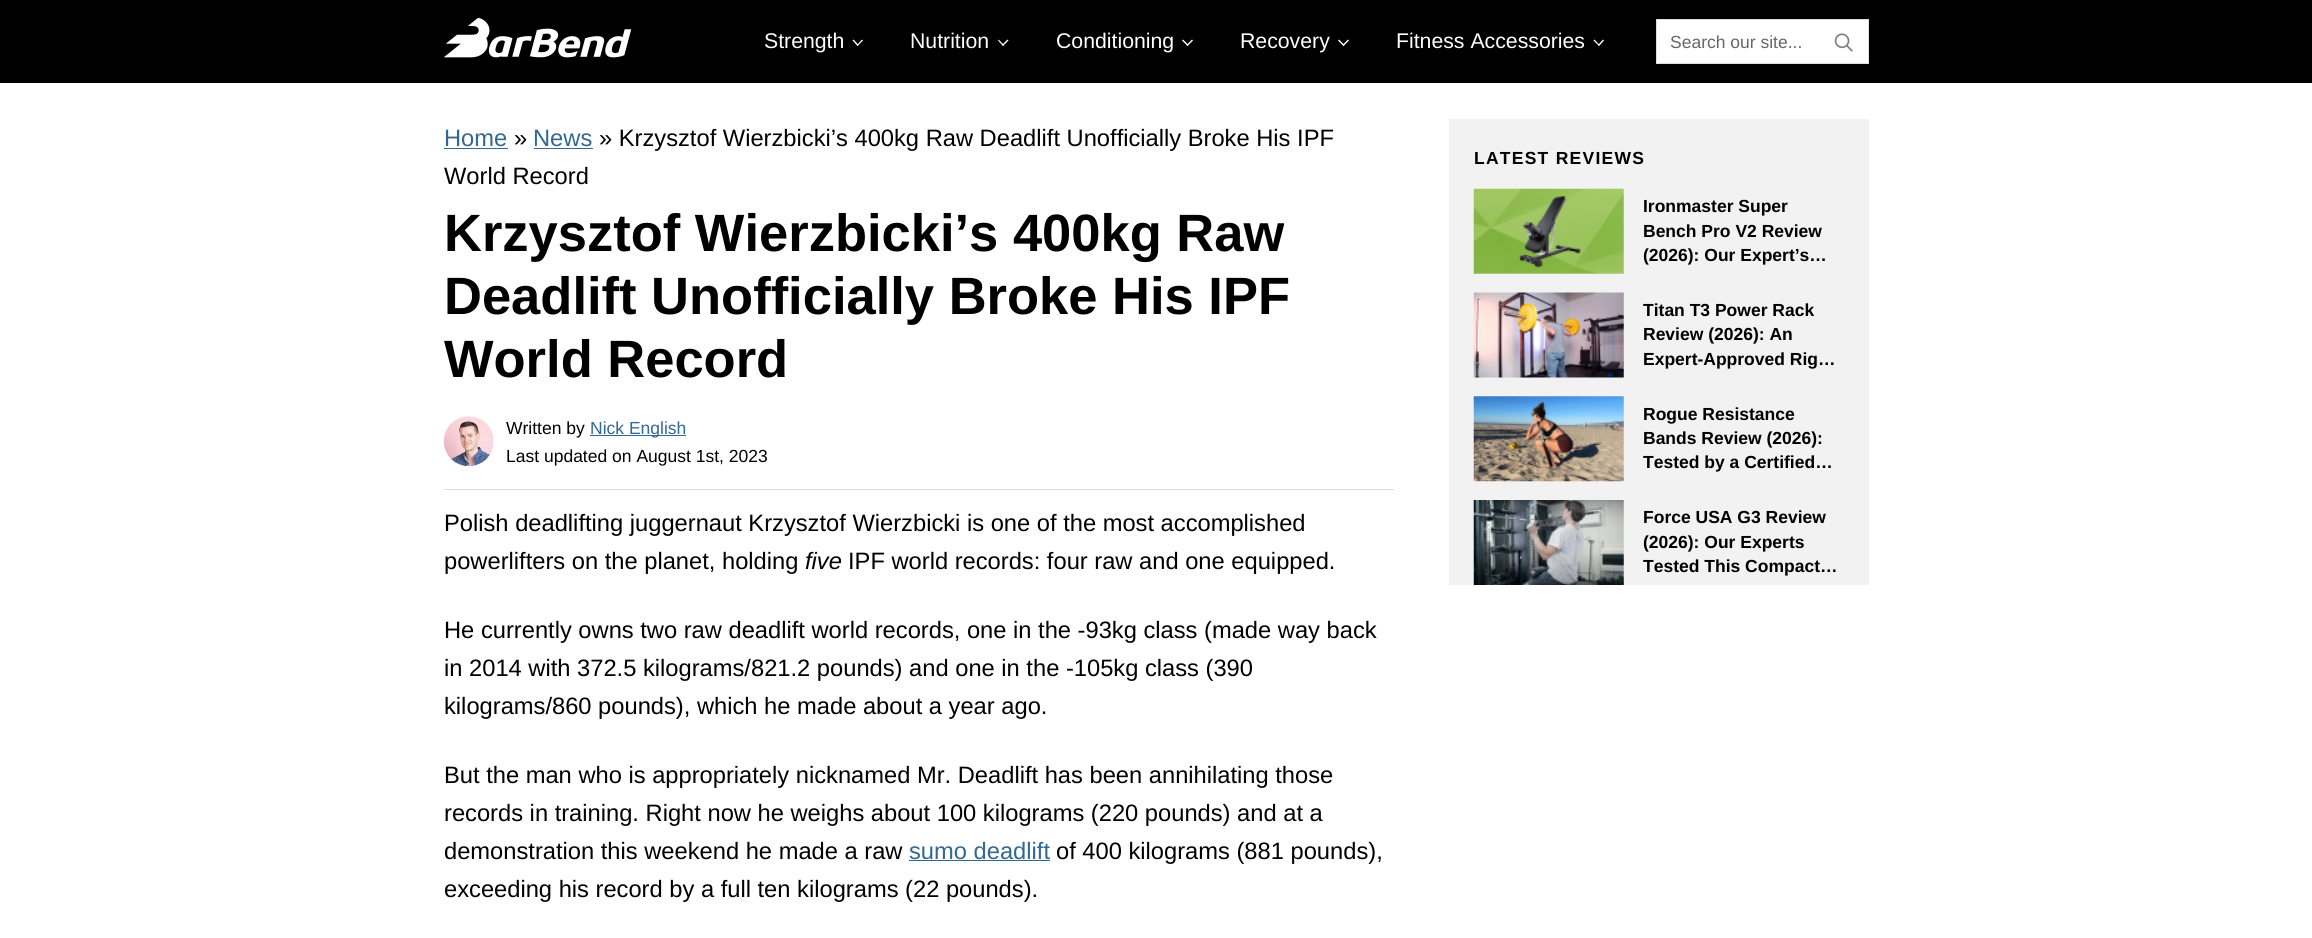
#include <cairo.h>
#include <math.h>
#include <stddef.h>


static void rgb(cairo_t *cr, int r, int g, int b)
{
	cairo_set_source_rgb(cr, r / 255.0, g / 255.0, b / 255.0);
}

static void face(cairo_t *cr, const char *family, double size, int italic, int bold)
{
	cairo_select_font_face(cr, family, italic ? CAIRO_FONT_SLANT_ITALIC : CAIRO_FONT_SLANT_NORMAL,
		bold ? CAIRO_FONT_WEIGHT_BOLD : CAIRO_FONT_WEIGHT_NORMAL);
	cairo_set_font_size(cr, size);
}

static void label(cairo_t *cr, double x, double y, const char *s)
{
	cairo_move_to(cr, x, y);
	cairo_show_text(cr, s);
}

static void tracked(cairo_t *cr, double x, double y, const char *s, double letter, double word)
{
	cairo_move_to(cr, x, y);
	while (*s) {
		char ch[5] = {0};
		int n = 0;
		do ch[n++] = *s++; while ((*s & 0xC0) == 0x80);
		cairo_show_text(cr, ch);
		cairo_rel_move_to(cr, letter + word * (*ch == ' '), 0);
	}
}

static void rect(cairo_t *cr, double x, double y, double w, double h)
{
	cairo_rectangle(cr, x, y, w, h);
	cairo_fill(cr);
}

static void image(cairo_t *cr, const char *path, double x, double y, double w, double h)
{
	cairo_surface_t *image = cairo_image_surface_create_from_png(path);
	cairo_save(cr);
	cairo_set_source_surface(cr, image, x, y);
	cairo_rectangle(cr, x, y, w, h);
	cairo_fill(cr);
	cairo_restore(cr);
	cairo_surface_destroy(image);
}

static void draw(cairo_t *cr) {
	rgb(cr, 255, 255, 255);
	cairo_paint(cr);
	rgb(cr, 0, 0, 0);
	rect(cr, 0, 0, 2312, 83);
	image(cr, "image0.png", 444, 18, 187, 40);
	face(cr, "Liberation Sans", 21.25, 0, 0);
	rgb(cr, 255, 255, 255);
	label(cr, 764, 48, "Strength");
	cairo_new_path(cr);
	cairo_move_to(cr, 863, 40.5);
	cairo_line_to(cr, 857.5, 46);
	cairo_line_to(cr, 857, 45);
	cairo_line_to(cr, 862, 39.5);
	cairo_close_path(cr);
	cairo_fill(cr);
	cairo_new_path(cr);
	cairo_move_to(cr, 858.5, 45);
	cairo_line_to(cr, 857.5, 46);
	cairo_line_to(cr, 852.5, 40.5);
	cairo_line_to(cr, 853.5, 39.5);
	cairo_close_path(cr);
	cairo_fill(cr);
	label(cr, 910, 48, "Nutrition");
	cairo_new_path(cr);
	cairo_move_to(cr, 1008.5, 40.5);
	cairo_line_to(cr, 1003, 46);
	cairo_line_to(cr, 1002, 45);
	cairo_line_to(cr, 1007.5, 39.5);
	cairo_close_path(cr);
	cairo_fill(cr);
	cairo_new_path(cr);
	cairo_move_to(cr, 1004, 45);
	cairo_line_to(cr, 1003, 46);
	cairo_line_to(cr, 998, 40.5);
	cairo_line_to(cr, 998.5, 39.5);
	cairo_close_path(cr);
	cairo_fill(cr);
	label(cr, 1056, 48, "Conditioning");
	cairo_new_path(cr);
	cairo_move_to(cr, 1193, 40.5);
	cairo_line_to(cr, 1187.5, 46);
	cairo_line_to(cr, 1186.5, 45);
	cairo_line_to(cr, 1192, 39.5);
	cairo_close_path(cr);
	cairo_fill(cr);
	cairo_new_path(cr);
	cairo_move_to(cr, 1188.5, 45);
	cairo_line_to(cr, 1187.5, 46);
	cairo_line_to(cr, 1182, 40.5);
	cairo_line_to(cr, 1183, 39.5);
	cairo_close_path(cr);
	cairo_fill(cr);
	label(cr, 1240, 48, "Recovery");
	cairo_new_path(cr);
	cairo_move_to(cr, 1349, 40.5);
	cairo_line_to(cr, 1343.5, 46);
	cairo_line_to(cr, 1342.5, 45);
	cairo_line_to(cr, 1348, 39.5);
	cairo_close_path(cr);
	cairo_fill(cr);
	cairo_new_path(cr);
	cairo_move_to(cr, 1344.5, 45);
	cairo_line_to(cr, 1343.5, 46);
	cairo_line_to(cr, 1338, 40.5);
	cairo_line_to(cr, 1339, 39.5);
	cairo_close_path(cr);
	cairo_fill(cr);
	label(cr, 1396, 48, "Fitness Accessories");
	cairo_new_path(cr);
	cairo_move_to(cr, 1604, 40.5);
	cairo_line_to(cr, 1599, 46);
	cairo_line_to(cr, 1598, 45);
	cairo_line_to(cr, 1603, 39.5);
	cairo_close_path(cr);
	cairo_fill(cr);
	cairo_new_path(cr);
	cairo_move_to(cr, 1599.5, 45);
	cairo_line_to(cr, 1599, 46);
	cairo_line_to(cr, 1593.5, 40.5);
	cairo_line_to(cr, 1594.5, 39.5);
	cairo_close_path(cr);
	cairo_fill(cr);
	cairo_rectangle(cr, 1656.5, 19.5, 212, 44);
	cairo_fill_preserve(cr);
	rgb(cr, 221, 221, 221);
	cairo_set_line_width(cr, 1);
	cairo_stroke(cr);
	face(cr, "Liberation Sans", 17.5, 0, 0);
	rgb(cr, 102, 102, 102);
	label(cr, 1670, 48, "Search our site...");
	image(cr, "image1.png", 1834, 33, 19, 19);
	face(cr, "Liberation Sans", 23.7, 0, 0);
	rgb(cr, 50, 104, 145);
	label(cr, 444, 146, "Home");
	rect(cr, 444, 148, 64, 1);
	rgb(cr, 0, 0, 0);
	label(cr, 514, 146, "»");
	rgb(cr, 50, 104, 145);
	label(cr, 533, 146, "News");
	rect(cr, 534, 148, 59, 1);
	rgb(cr, 0, 0, 0);
	label(cr, 599, 146, "» Krzysztof Wierzbicki’s 400kg Raw Deadlift Unofficially Broke His IPF");
	label(cr, 444, 184, "World Record");
	rgb(cr, 221, 221, 221);
	rect(cr, 444, 489, 950, 1);
	face(cr, "Liberation Sans", 52.5, 0, 1);
	rgb(cr, 0, 0, 0);
	label(cr, 444, 251, "Krzysztof Wierzbicki’s 400kg Raw");
	label(cr, 444, 314, "Deadlift Unofficially Broke His IPF");
	label(cr, 444, 377, "World Record");
	image(cr, "image2.png", 443, 416, 51, 51);
	face(cr, "Liberation Sans", 17.5, 0, 0);
	label(cr, 506, 434, "Written by");
	rgb(cr, 50, 104, 145);
	rect(cr, 590, 435, 96, 1);
	label(cr, 590, 434, "Nick English");
	rgb(cr, 0, 0, 0);
	label(cr, 506, 462, "Last updated on August 1st, 2023");
	face(cr, "Liberation Sans", 23.7, 0, 0);
	label(cr, 444, 531, "Polish deadlifting juggernaut Krzysztof Wierzbicki is one of the most accomplished");
	label(cr, 444, 569, "powerlifters on the planet, holding");
	face(cr, "Liberation Sans", 23.7, 1, 0);
	label(cr, 805, 569, "five");
	face(cr, "Liberation Sans", 23.7, 0, 0);
	label(cr, 848, 569, "IPF world records: four raw and one equipped.");
	label(cr, 444, 638, "He currently owns two raw deadlift world records, one in the -93kg class (made way back");
	label(cr, 444, 676, "in 2014 with 372.5 kilograms/821.2 pounds) and one in the -105kg class (390");
	label(cr, 444, 714, "kilograms/860 pounds), which he made about a year ago.");
	label(cr, 444, 783, "But the man who is appropriately nicknamed Mr. Deadlift has been annihilating those");
	label(cr, 444, 821, "records in training. Right now he weighs about 100 kilograms (220 pounds) and at a");
	label(cr, 444, 859, "demonstration this weekend he made a raw");
	rgb(cr, 50, 104, 145);
	label(cr, 909, 859, "sumo deadlift");
	rect(cr, 909, 860, 141, 1);
	rgb(cr, 0, 0, 0);
	label(cr, 1056, 859, "of 400 kilograms (881 pounds),");
	label(cr, 444, 897, "exceeding his record by a full ten kilograms (22 pounds).");
	rgb(cr, 242, 242, 242);
	rect(cr, 1449, 119, 420, 466);
	face(cr, "Liberation Sans", 17.5, 0, 1);
	rgb(cr, 0, 0, 0);
	tracked(cr, 1474, 164, "LATEST REVIEWS", 1.25, 0);
	image(cr, "image3.png", 1473, 188, 151, 86);
	label(cr, 1643, 212, "Ironmaster Super");
	label(cr, 1643, 237, "Bench Pro V2 Review");
	label(cr, 1643, 261, "(2026): Our Expert’s…");
	image(cr, "image4.png", 1473, 292, 151, 86);
	label(cr, 1643, 316, "Titan T3 Power Rack");
	label(cr, 1643, 340, "Review (2026): An");
	label(cr, 1643, 365, "Expert-Approved Rig…");
	image(cr, "image5.png", 1473, 396, 151, 86);
	label(cr, 1643, 420, "Rogue Resistance");
	label(cr, 1643, 444, "Bands Review (2026):");
	label(cr, 1643, 468, "Tested by a Certified…");
	image(cr, "image6.png", 1473, 500, 151, 85);
	label(cr, 1643, 523, "Force USA G3 Review");
	label(cr, 1643, 548, "(2026): Our Experts");
	label(cr, 1643, 572, "Tested This Compact…");
}

int main(void) {
	cairo_surface_t *surface = cairo_image_surface_create(CAIRO_FORMAT_RGB24, 2312, 938);
	cairo_t *cr = cairo_create(surface);
	cairo_font_options_t *options = cairo_font_options_create();
	cairo_font_options_set_hint_metrics(options, CAIRO_HINT_METRICS_OFF);
	cairo_font_options_set_hint_style(options, CAIRO_HINT_STYLE_NONE);
	cairo_set_font_options(cr, options);
	cairo_set_miter_limit(cr, 4);
	draw(cr);
	cairo_surface_write_to_png(surface, "render.png");
	cairo_font_options_destroy(options);
	cairo_destroy(cr);
	cairo_surface_destroy(surface);
	return 0;
}
